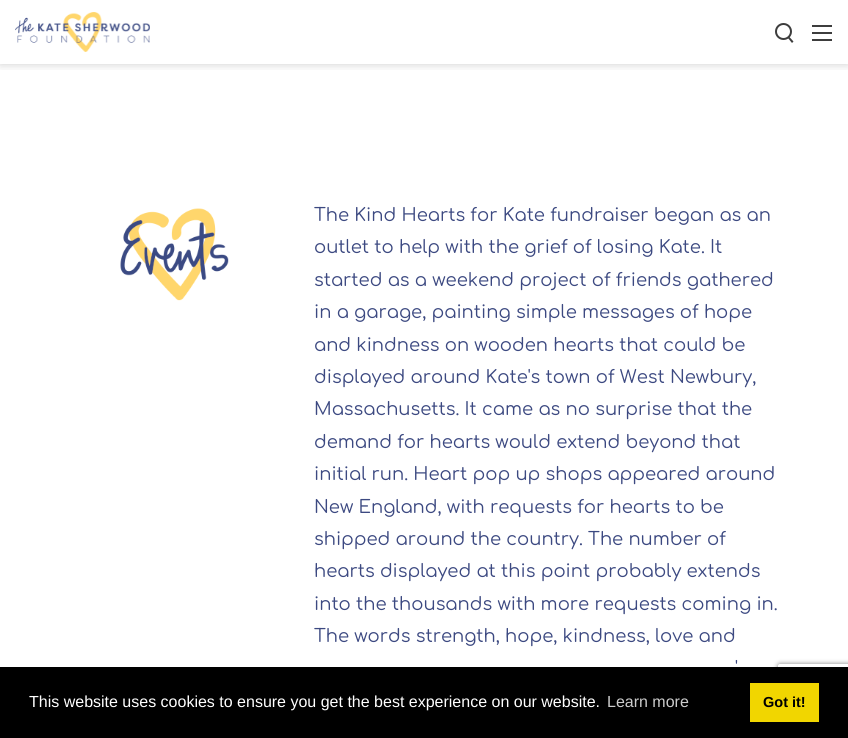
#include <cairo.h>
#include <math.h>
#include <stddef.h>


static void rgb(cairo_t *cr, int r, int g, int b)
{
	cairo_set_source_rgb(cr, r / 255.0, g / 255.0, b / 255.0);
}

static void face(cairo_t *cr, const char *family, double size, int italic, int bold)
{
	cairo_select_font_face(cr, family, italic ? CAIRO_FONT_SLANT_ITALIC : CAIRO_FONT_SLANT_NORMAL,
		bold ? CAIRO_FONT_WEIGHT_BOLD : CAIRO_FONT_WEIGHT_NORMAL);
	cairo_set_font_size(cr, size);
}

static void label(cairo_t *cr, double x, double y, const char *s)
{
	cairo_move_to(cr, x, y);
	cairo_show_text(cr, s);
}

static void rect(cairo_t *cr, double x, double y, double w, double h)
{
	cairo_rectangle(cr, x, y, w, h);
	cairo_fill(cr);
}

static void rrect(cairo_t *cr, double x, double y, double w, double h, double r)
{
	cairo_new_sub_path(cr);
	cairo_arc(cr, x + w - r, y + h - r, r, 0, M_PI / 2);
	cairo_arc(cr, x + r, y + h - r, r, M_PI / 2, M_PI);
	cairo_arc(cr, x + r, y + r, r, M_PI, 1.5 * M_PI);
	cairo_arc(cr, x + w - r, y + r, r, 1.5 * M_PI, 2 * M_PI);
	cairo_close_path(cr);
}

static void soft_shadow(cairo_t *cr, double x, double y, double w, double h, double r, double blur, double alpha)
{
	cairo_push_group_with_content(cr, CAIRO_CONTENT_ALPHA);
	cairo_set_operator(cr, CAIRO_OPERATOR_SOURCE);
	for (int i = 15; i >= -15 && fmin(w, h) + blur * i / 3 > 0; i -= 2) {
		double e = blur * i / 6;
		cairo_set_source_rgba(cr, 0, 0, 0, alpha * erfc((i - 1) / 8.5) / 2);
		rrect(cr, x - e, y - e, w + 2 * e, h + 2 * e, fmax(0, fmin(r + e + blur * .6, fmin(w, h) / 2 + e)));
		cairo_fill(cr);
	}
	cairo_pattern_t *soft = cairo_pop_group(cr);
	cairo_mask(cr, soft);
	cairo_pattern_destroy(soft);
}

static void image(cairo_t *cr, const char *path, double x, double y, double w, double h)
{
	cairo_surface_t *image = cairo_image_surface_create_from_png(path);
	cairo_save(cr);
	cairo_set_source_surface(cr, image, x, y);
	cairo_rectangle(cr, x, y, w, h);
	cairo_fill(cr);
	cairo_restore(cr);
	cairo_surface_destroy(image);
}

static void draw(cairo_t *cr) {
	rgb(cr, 255, 255, 255);
	cairo_paint(cr);
	cairo_save(cr);
	cairo_rectangle(cr, 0, 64, 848, 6);
	cairo_clip(cr);
	rgb(cr, 0, 0, 0);
	soft_shadow(cr, 0, 0, 848, 64, 0, 5, 0.2);
	cairo_restore(cr);
	image(cr, "image0.png", 15, 12, 135, 40);
	rgb(cr, 61, 61, 61);
	cairo_new_path(cr);
	cairo_move_to(cr, 789, 36.5);
	cairo_line_to(cr, 793.5, 41.5);
	cairo_line_to(cr, 792, 43);
	cairo_line_to(cr, 787.5, 37.5);
	cairo_close_path(cr);
	cairo_fill(cr);
	cairo_arc(cr, 783.5, 31.5, 7.5, 0, 2 * M_PI);
	cairo_stroke(cr);
	rect(cr, 812, 25, 20, 2);
	rect(cr, 812, 32, 20, 2);
	rect(cr, 812, 39, 20, 2);
	image(cr, "image1.png", 120, 208, 109, 93);
	face(cr, "Comfortaa", 18, 0, 0);
	rgb(cr, 60, 73, 129);
	label(cr, 314, 221, "The Kind Hearts for Kate fundraiser began as an");
	label(cr, 314, 253, "outlet to help with the grief of losing Kate. It");
	label(cr, 314, 286, "started as a weekend project of friends gathered");
	label(cr, 314, 318, "in a garage, painting simple messages of hope");
	label(cr, 314, 351, "and kindness on wooden hearts that could be");
	label(cr, 314, 383, "displayed around Kate's town of West Newbury,");
	label(cr, 314, 415, "Massachusetts. It came as no surprise that the");
	label(cr, 314, 448, "demand for hearts would extend beyond that");
	label(cr, 314, 480, "initial run. Heart pop up shops appeared around");
	label(cr, 314, 513, "New England, with requests for hearts to be");
	label(cr, 314, 545, "shipped around the country. The number of");
	label(cr, 314, 577, "hearts displayed at this point probably extends");
	label(cr, 314, 610, "into the thousands with more requests coming in.");
	label(cr, 314, 642, "The words strength, hope, kindness, love and");
	label(cr, 735, 674, "'");
	cairo_save(cr);
	cairo_set_fill_rule(cr, CAIRO_FILL_RULE_EVEN_ODD);
	cairo_new_path(cr);
	cairo_move_to(cr, 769, 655);
	cairo_line_to(cr, 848, 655);
	cairo_line_to(cr, 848, 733);
	cairo_line_to(cr, 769, 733);
	cairo_close_path(cr);
	cairo_move_to(cr, 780, 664);
	cairo_line_to(cr, 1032, 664);
	cairo_curve_to(cr, 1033, 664, 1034, 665, 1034, 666);
	cairo_line_to(cr, 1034, 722);
	cairo_curve_to(cr, 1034, 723, 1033, 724, 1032, 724);
	cairo_line_to(cr, 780, 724);
	cairo_curve_to(cr, 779, 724, 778, 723, 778, 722);
	cairo_line_to(cr, 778, 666);
	cairo_curve_to(cr, 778, 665, 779, 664, 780, 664);
	cairo_close_path(cr);
	cairo_clip(cr);
	rgb(cr, 128, 128, 128);
	soft_shadow(cr, 778, 664, 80, 60, 2, 2.5, 1);
	cairo_restore(cr);
	rgb(cr, 0, 0, 0);
	rect(cr, 0, 667, 848, 71);
	face(cr, "Liberation Sans", 16, 0, 0);
	rgb(cr, 255, 255, 255);
	label(cr, 29, 707, "This website uses cookies to ensure you get the best experience on our website.");
	rgb(cr, 204, 204, 204);
	label(cr, 607, 707, "Learn more");
	rgb(cr, 241, 214, 0);
	rect(cr, 750, 683, 69, 39);
	face(cr, "Liberation Sans", 14.5, 0, 1);
	rgb(cr, 0, 0, 0);
	label(cr, 763, 707, "Got it!");
}

int main(void) {
	cairo_surface_t *surface = cairo_image_surface_create(CAIRO_FORMAT_RGB24, 848, 738);
	cairo_t *cr = cairo_create(surface);
	cairo_font_options_t *options = cairo_font_options_create();
	cairo_font_options_set_hint_metrics(options, CAIRO_HINT_METRICS_OFF);
	cairo_font_options_set_hint_style(options, CAIRO_HINT_STYLE_NONE);
	cairo_set_font_options(cr, options);
	cairo_set_miter_limit(cr, 4);
	draw(cr);
	cairo_surface_write_to_png(surface, "render.png");
	cairo_font_options_destroy(options);
	cairo_destroy(cr);
	cairo_surface_destroy(surface);
	return 0;
}
